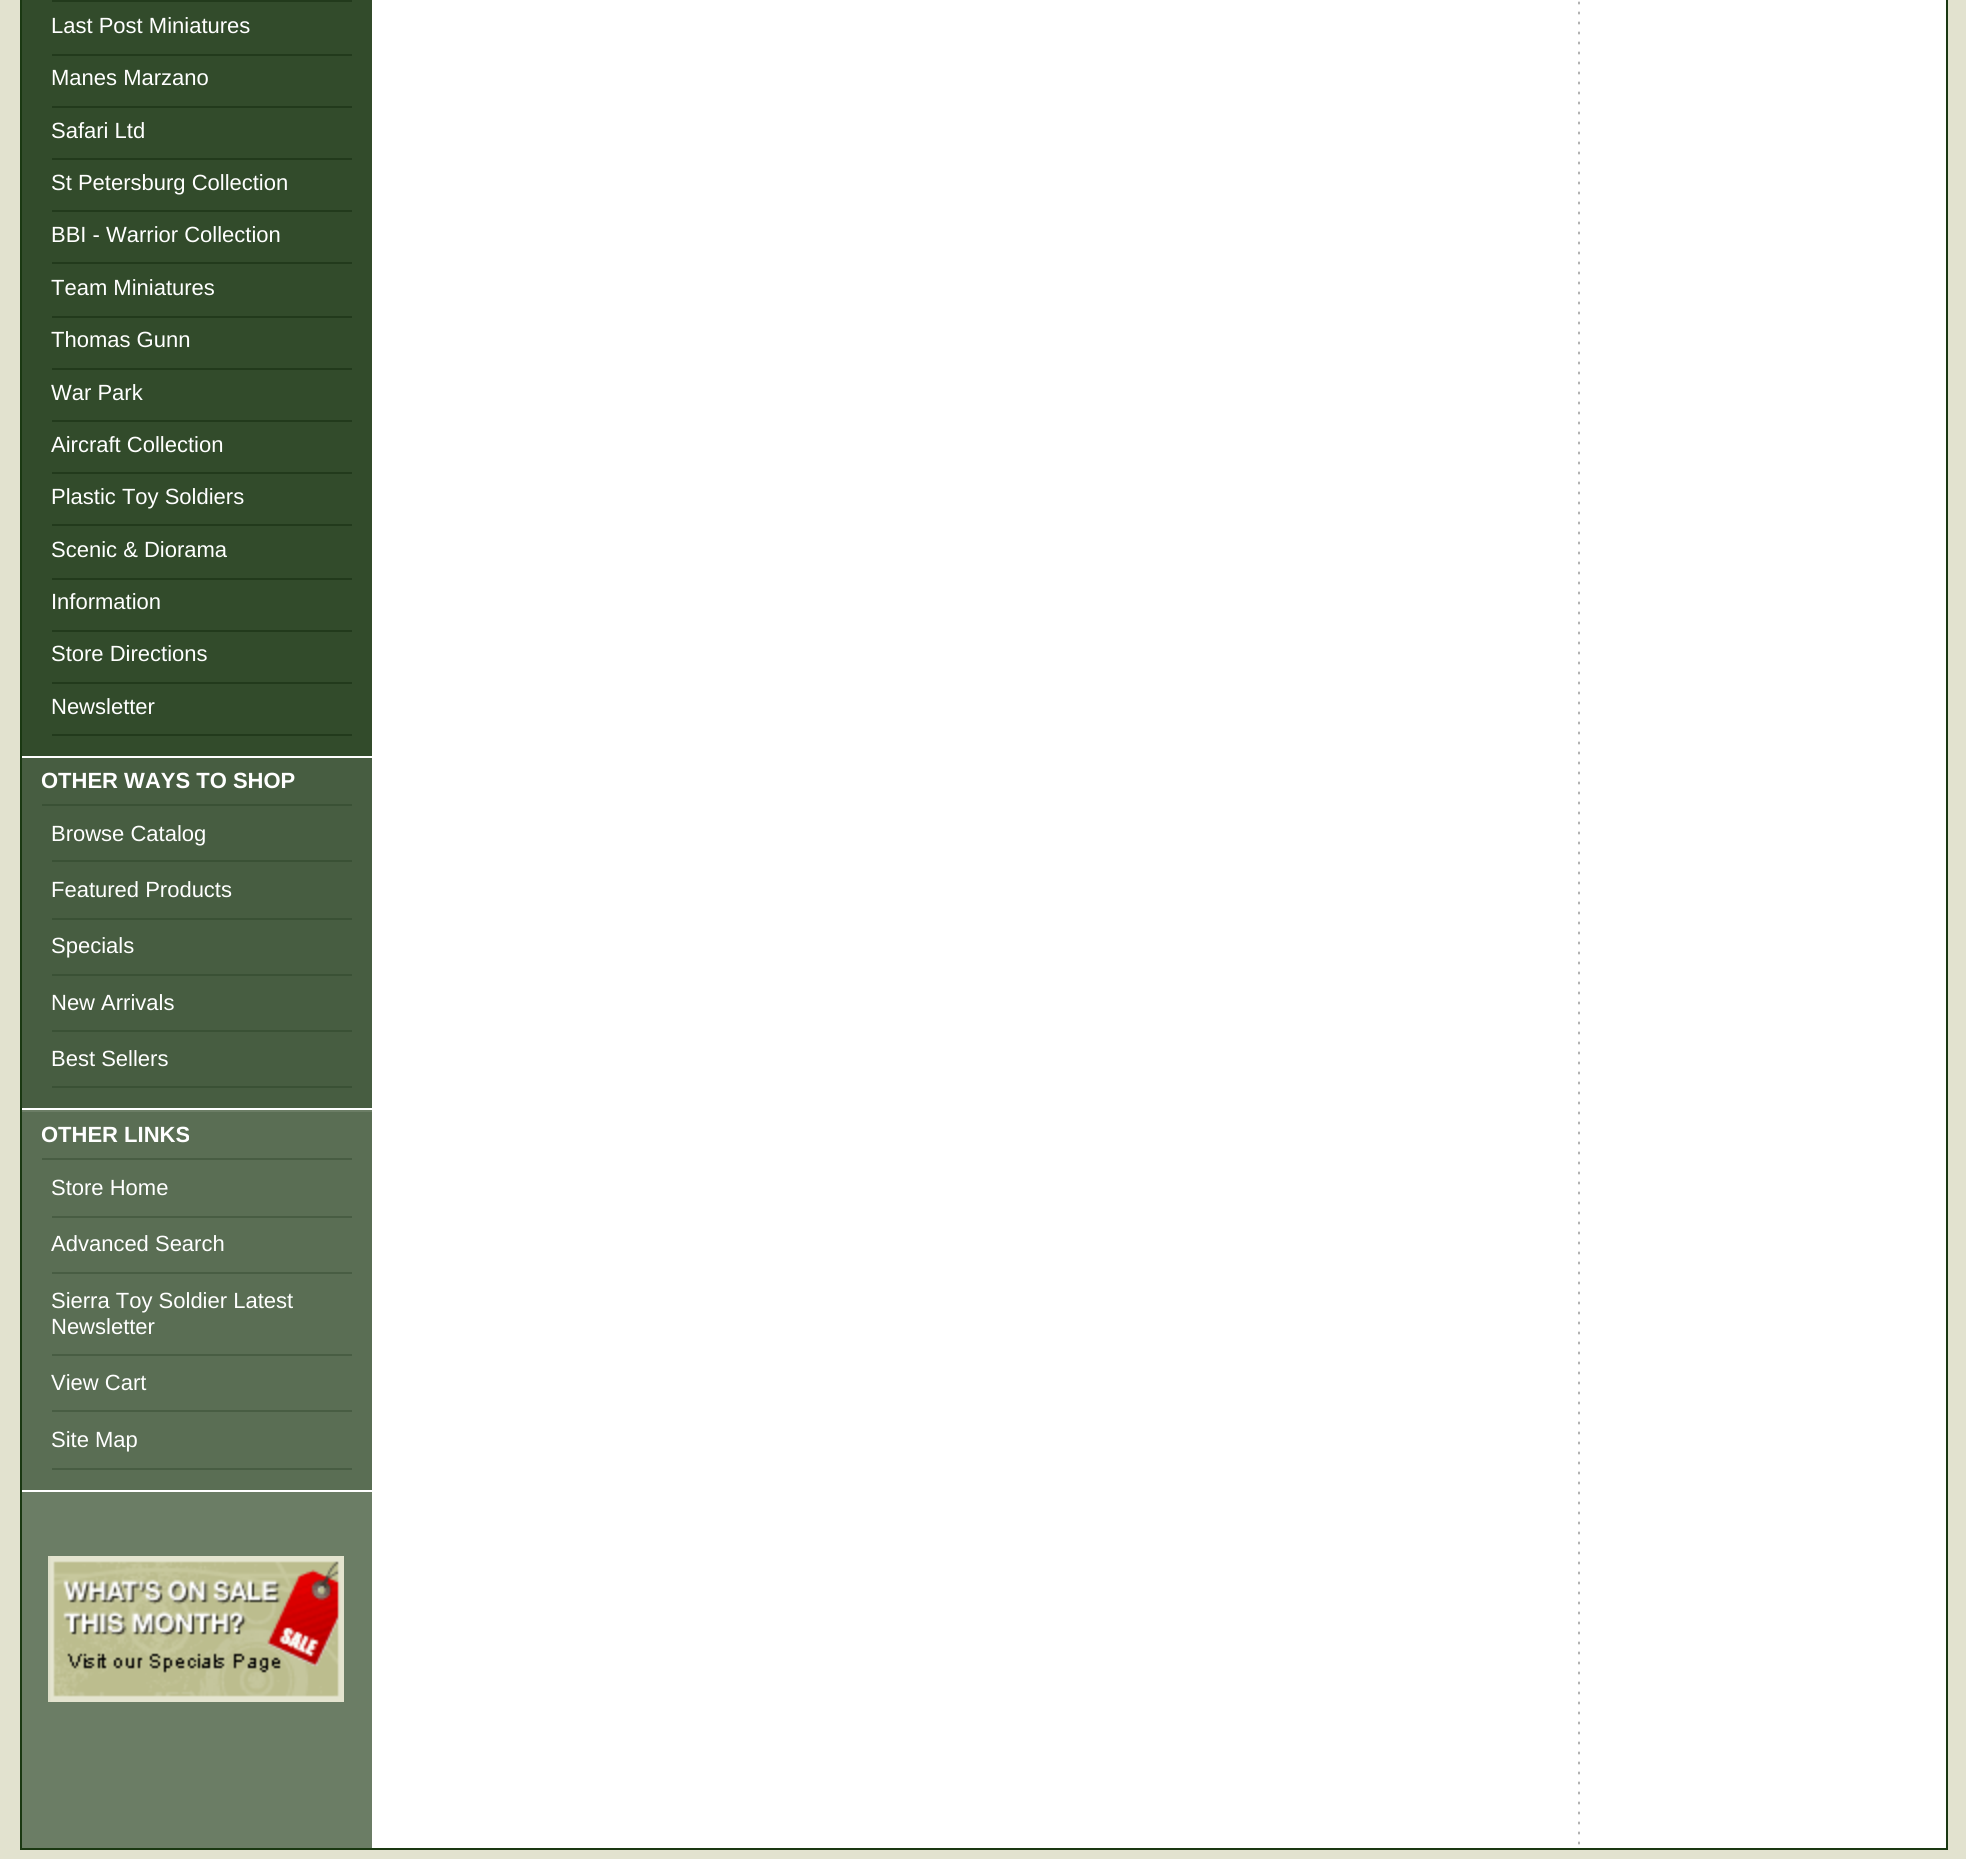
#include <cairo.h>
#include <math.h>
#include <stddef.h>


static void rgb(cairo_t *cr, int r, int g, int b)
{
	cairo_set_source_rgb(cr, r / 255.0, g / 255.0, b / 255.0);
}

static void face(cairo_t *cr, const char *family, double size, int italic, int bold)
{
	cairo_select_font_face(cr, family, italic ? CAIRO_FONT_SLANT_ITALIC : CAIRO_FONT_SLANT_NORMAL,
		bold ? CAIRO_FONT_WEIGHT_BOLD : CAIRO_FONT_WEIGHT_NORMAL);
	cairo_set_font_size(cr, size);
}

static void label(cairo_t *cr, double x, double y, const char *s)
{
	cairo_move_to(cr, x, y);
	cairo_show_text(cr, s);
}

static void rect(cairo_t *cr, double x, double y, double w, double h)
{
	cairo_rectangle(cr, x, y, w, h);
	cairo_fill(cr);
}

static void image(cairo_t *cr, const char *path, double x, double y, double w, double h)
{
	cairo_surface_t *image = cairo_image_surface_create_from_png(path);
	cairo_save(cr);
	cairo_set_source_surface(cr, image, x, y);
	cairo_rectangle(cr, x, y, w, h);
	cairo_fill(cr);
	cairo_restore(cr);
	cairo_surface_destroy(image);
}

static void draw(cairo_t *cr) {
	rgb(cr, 226, 226, 207);
	cairo_paint(cr);
	rgb(cr, 255, 255, 255);
	rect(cr, 372, 0, 1574, 1848);
	rgb(cr, 26, 56, 18);
	rect(cr, 1946, 0, 2, 1850);
	rect(cr, 20, 1848, 1928, 2);
	rect(cr, 20, 0, 2, 1850);
	rgb(cr, 107, 125, 101);
	rect(cr, 22, 1110, 350, 738);
	rgb(cr, 50, 75, 43);
	rect(cr, 22, 0, 350, 756);
	rgb(cr, 255, 255, 255);
	rect(cr, 22, 756, 350, 2);
	rgb(cr, 34, 58, 28);
	rect(cr, 52, 0, 300, 2);
	rect(cr, 52, 54, 300, 2);
	face(cr, "Liberation Sans", 22, 0, 0);
	rgb(cr, 255, 255, 255);
	label(cr, 51, 33, "Last Post Miniatures");
	rgb(cr, 34, 58, 28);
	rect(cr, 52, 106, 300, 2);
	rgb(cr, 255, 255, 255);
	label(cr, 51, 85, "Manes Marzano");
	rgb(cr, 34, 58, 28);
	rect(cr, 52, 158, 300, 2);
	rgb(cr, 255, 255, 255);
	label(cr, 51, 138, "Safari Ltd");
	rgb(cr, 34, 58, 28);
	rect(cr, 52, 210, 300, 2);
	rgb(cr, 255, 255, 255);
	label(cr, 51, 190, "St Petersburg Collection");
	rgb(cr, 34, 58, 28);
	rect(cr, 52, 262, 300, 2);
	rgb(cr, 255, 255, 255);
	label(cr, 51, 242, "BBI - Warrior Collection");
	rgb(cr, 34, 58, 28);
	rect(cr, 52, 316, 300, 2);
	rgb(cr, 255, 255, 255);
	label(cr, 51, 295, "Team Miniatures");
	rgb(cr, 34, 58, 28);
	rect(cr, 52, 368, 300, 2);
	rgb(cr, 255, 255, 255);
	label(cr, 51, 347, "Thomas Gunn");
	rgb(cr, 34, 58, 28);
	rect(cr, 52, 420, 300, 2);
	rgb(cr, 255, 255, 255);
	label(cr, 51, 400, "War Park");
	rgb(cr, 34, 58, 28);
	rect(cr, 52, 472, 300, 2);
	rgb(cr, 255, 255, 255);
	label(cr, 51, 452, "Aircraft Collection");
	rgb(cr, 34, 58, 28);
	rect(cr, 52, 524, 300, 2);
	rgb(cr, 255, 255, 255);
	label(cr, 51, 504, "Plastic Toy Soldiers");
	rgb(cr, 34, 58, 28);
	rect(cr, 52, 578, 300, 2);
	rgb(cr, 255, 255, 255);
	label(cr, 51, 557, "Scenic & Diorama");
	rgb(cr, 34, 58, 28);
	rect(cr, 52, 630, 300, 2);
	rgb(cr, 255, 255, 255);
	label(cr, 51, 609, "Information");
	rgb(cr, 34, 58, 28);
	rect(cr, 52, 682, 300, 2);
	rgb(cr, 255, 255, 255);
	label(cr, 51, 661, "Store Directions");
	rgb(cr, 34, 58, 28);
	rect(cr, 52, 734, 300, 2);
	rgb(cr, 255, 255, 255);
	label(cr, 51, 714, "Newsletter");
	rgb(cr, 71, 93, 65);
	rect(cr, 22, 758, 350, 350);
	rgb(cr, 255, 255, 255);
	rect(cr, 22, 1108, 350, 2);
	rgb(cr, 58, 81, 53);
	rect(cr, 42, 804, 310, 2);
	face(cr, "Liberation Sans", 22, 0, 1);
	rgb(cr, 255, 255, 255);
	label(cr, 41, 788, "OTHER WAYS TO SHOP");
	rgb(cr, 58, 81, 53);
	rect(cr, 52, 860, 300, 2);
	face(cr, "Liberation Sans", 22, 0, 0);
	rgb(cr, 255, 255, 255);
	label(cr, 51, 841, "Browse Catalog");
	rgb(cr, 58, 81, 53);
	rect(cr, 52, 918, 300, 2);
	rgb(cr, 255, 255, 255);
	label(cr, 51, 897, "Featured Products");
	rgb(cr, 58, 81, 53);
	rect(cr, 52, 974, 300, 2);
	rgb(cr, 255, 255, 255);
	label(cr, 51, 953, "Specials");
	rgb(cr, 58, 81, 53);
	rect(cr, 52, 1030, 300, 2);
	rgb(cr, 255, 255, 255);
	label(cr, 51, 1010, "New Arrivals");
	rgb(cr, 58, 81, 53);
	rect(cr, 52, 1086, 300, 2);
	rgb(cr, 255, 255, 255);
	label(cr, 51, 1066, "Best Sellers");
	rgb(cr, 90, 110, 84);
	rect(cr, 22, 1112, 350, 378);
	rgb(cr, 255, 255, 255);
	rect(cr, 22, 1490, 350, 2);
	rgb(cr, 72, 93, 67);
	rect(cr, 42, 1158, 310, 2);
	face(cr, "Liberation Sans", 22, 0, 1);
	rgb(cr, 255, 255, 255);
	label(cr, 41, 1142, "OTHER LINKS");
	rgb(cr, 72, 93, 67);
	rect(cr, 52, 1216, 300, 2);
	face(cr, "Liberation Sans", 22, 0, 0);
	rgb(cr, 255, 255, 255);
	label(cr, 51, 1195, "Store Home");
	rgb(cr, 72, 93, 67);
	rect(cr, 52, 1272, 300, 2);
	rgb(cr, 255, 255, 255);
	label(cr, 51, 1251, "Advanced Search");
	rgb(cr, 72, 93, 67);
	rect(cr, 52, 1354, 300, 2);
	rgb(cr, 255, 255, 255);
	label(cr, 51, 1308, "Sierra Toy Soldier Latest");
	label(cr, 51, 1334, "Newsletter");
	rgb(cr, 72, 93, 67);
	rect(cr, 52, 1410, 300, 2);
	rgb(cr, 255, 255, 255);
	label(cr, 51, 1390, "View Cart");
	rgb(cr, 72, 93, 67);
	rect(cr, 52, 1468, 300, 2);
	rgb(cr, 255, 255, 255);
	label(cr, 51, 1447, "Site Map");
	image(cr, "image0.png", 48, 1556, 296, 146);
	image(cr, "image1.png", 1578, 1, 2, 1844);
}

int main(void) {
	cairo_surface_t *surface = cairo_image_surface_create(CAIRO_FORMAT_RGB24, 1966, 1859);
	cairo_t *cr = cairo_create(surface);
	cairo_font_options_t *options = cairo_font_options_create();
	cairo_font_options_set_hint_metrics(options, CAIRO_HINT_METRICS_OFF);
	cairo_font_options_set_hint_style(options, CAIRO_HINT_STYLE_NONE);
	cairo_set_font_options(cr, options);
	cairo_set_miter_limit(cr, 4);
	draw(cr);
	cairo_surface_write_to_png(surface, "render.png");
	cairo_font_options_destroy(options);
	cairo_destroy(cr);
	cairo_surface_destroy(surface);
	return 0;
}
